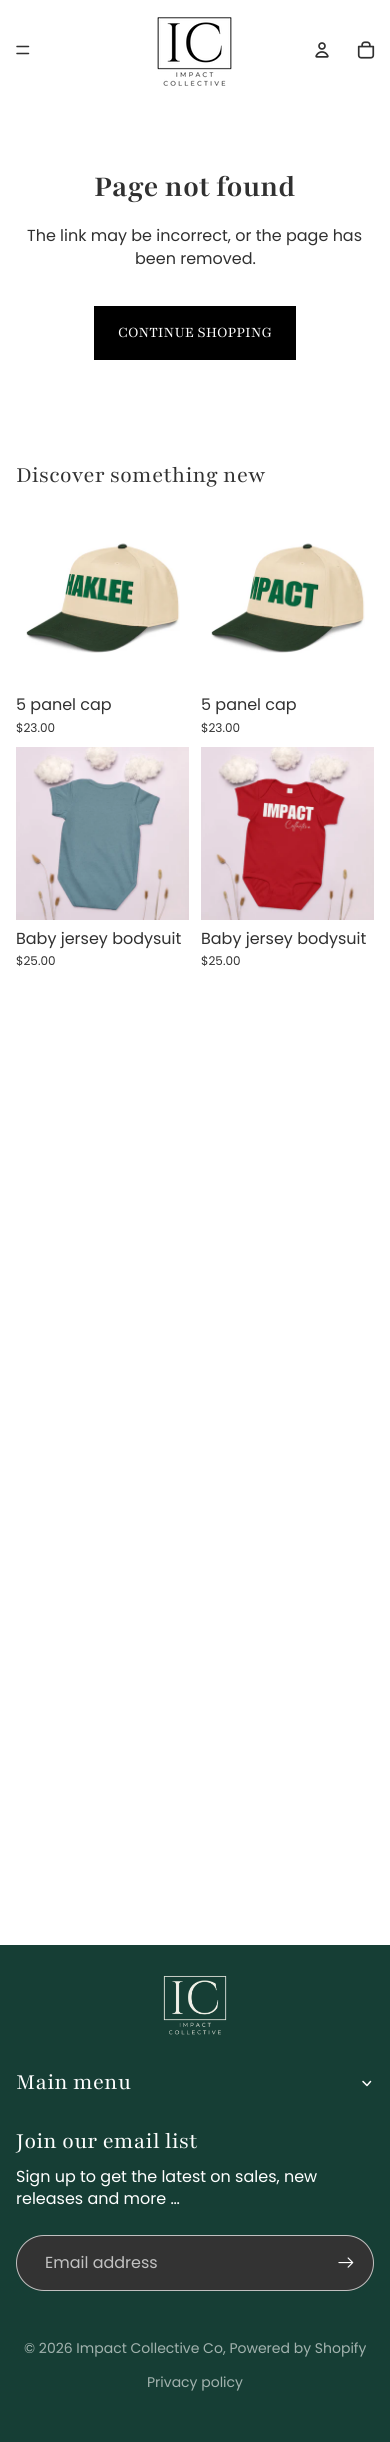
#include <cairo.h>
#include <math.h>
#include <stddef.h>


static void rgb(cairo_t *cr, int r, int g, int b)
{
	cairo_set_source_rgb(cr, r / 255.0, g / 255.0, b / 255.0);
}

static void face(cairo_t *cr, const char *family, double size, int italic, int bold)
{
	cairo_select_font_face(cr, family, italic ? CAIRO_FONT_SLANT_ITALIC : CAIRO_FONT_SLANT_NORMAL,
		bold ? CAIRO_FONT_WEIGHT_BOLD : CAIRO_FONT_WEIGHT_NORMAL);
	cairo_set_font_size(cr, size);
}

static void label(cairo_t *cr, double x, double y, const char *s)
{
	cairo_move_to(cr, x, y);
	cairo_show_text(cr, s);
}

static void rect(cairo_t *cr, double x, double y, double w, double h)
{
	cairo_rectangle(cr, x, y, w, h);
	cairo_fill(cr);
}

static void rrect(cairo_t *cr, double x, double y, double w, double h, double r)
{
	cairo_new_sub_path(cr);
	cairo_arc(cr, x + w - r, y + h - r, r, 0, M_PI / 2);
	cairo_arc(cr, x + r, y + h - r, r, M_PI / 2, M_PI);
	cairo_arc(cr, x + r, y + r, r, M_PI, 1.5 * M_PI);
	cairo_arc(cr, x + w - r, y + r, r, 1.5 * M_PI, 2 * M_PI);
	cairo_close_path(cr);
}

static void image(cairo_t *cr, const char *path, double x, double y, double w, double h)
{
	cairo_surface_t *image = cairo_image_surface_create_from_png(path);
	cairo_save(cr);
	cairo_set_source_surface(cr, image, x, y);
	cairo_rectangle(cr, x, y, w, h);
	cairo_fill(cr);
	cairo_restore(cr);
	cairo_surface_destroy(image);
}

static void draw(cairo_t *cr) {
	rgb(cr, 255, 255, 255);
	cairo_paint(cr);
	cairo_new_path(cr);
	cairo_move_to(cr, 17, 46.5);
	cairo_line_to(cr, 28.5, 46.5);
	cairo_move_to(cr, 17, 53.5);
	cairo_line_to(cr, 28.5, 53.5);
	rgb(cr, 48, 48, 48);
	cairo_set_line_width(cr, 1.5);
	cairo_set_line_cap(cr, CAIRO_LINE_CAP_ROUND);
	cairo_stroke(cr);
	image(cr, "image0.png", 157, 17, 75, 69);
	image(cr, "image1.png", 315, 42, 14, 16);
	image(cr, "image2.png", 357, 41, 18, 18);
	face(cr, "Playfair", 32, 0, 1);
	label(cr, 94, 196, "Page not found");
	face(cr, "Poppins", 16, 0, 0);
	label(cr, 27, 241, "The link may be incorrect, or the page has");
	label(cr, 135, 264, "been removed.");
	rgb(cr, 0, 0, 0);
	rect(cr, 94, 306, 202, 54);
	face(cr, "Playfair", 16, 0, 0);
	rgb(cr, 255, 255, 255);
	label(cr, 118, 337, "CONTINUE SHOPPING");
	face(cr, "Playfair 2", 24, 0, 0);
	rgb(cr, 48, 48, 48);
	label(cr, 16, 482, "Discover something new");
	image(cr, "image3.png", 26, 543, 154, 110);
	face(cr, "Poppins", 16, 0, 0);
	label(cr, 16, 710, "5 panel cap");
	face(cr, "Poppins", 12, 0, 0);
	label(cr, 16, 732, "$23.00");
	image(cr, "image4.png", 211, 543, 154, 110);
	face(cr, "Poppins", 16, 0, 0);
	label(cr, 201, 710, "5 panel cap");
	face(cr, "Poppins", 12, 0, 0);
	label(cr, 201, 732, "$23.00");
	image(cr, "image5.png", 16, 747, 173, 173);
	face(cr, "Poppins", 16, 0, 0);
	label(cr, 16, 944, "Baby jersey bodysuit");
	face(cr, "Poppins", 12, 0, 0);
	label(cr, 16, 965, "$25.00");
	image(cr, "image6.png", 201, 747, 173, 173);
	face(cr, "Poppins", 16, 0, 0);
	label(cr, 201, 944, "Baby jersey bodysuit");
	face(cr, "Poppins", 12, 0, 0);
	label(cr, 201, 965, "$25.00");
	rgb(cr, 22, 62, 53);
	rect(cr, 0, 1945, 390, 497);
	image(cr, "image7.png", 163, 1975, 64, 60);
	face(cr, "Playfair 2", 24, 0, 0);
	rgb(cr, 255, 255, 255);
	label(cr, 16, 2089, "Main menu");
	cairo_new_path(cr);
	cairo_move_to(cr, 370.5, 2081.5);
	cairo_line_to(cr, 367, 2085.5);
	cairo_line_to(cr, 363, 2081.5);
	cairo_set_line_join(cr, CAIRO_LINE_JOIN_ROUND);
	cairo_stroke(cr);
	label(cr, 16, 2148, "Join our email list");
	face(cr, "Poppins", 16, 0, 0);
	label(cr, 16, 2182, "Sign up to get the latest on sales, new");
	label(cr, 16, 2204, "releases and more …");
	rgb(cr, 51, 51, 51);
	rrect(cr, 16, 2235, 358, 56, 28);
	cairo_fill(cr);
	rrect(cr, 16.5, 2235.5, 357, 55, 27.5);
	cairo_set_source_rgba(cr, 1, 1, 1, 0.69);
	cairo_set_line_width(cr, 1);
	cairo_set_line_cap(cr, CAIRO_LINE_CAP_BUTT);
	cairo_set_line_join(cr, CAIRO_LINE_JOIN_MITER);
	cairo_stroke(cr);
	rgb(cr, 194, 194, 194);
	label(cr, 45, 2268, "Email address");
	image(cr, "image8.png", 338, 2257, 16, 11);
	face(cr, "Poppins", 14, 0, 0);
	rgb(cr, 162, 178, 174);
	label(cr, 24, 2353, "© 2026 Impact Collective Co, Powered by Shopify");
	label(cr, 147, 2387, "Privacy policy");
}

int main(void) {
	cairo_surface_t *surface = cairo_image_surface_create(CAIRO_FORMAT_RGB24, 390, 2442);
	cairo_t *cr = cairo_create(surface);
	cairo_font_options_t *options = cairo_font_options_create();
	cairo_font_options_set_hint_metrics(options, CAIRO_HINT_METRICS_OFF);
	cairo_font_options_set_hint_style(options, CAIRO_HINT_STYLE_NONE);
	cairo_set_font_options(cr, options);
	cairo_set_miter_limit(cr, 4);
	draw(cr);
	cairo_surface_write_to_png(surface, "render.png");
	cairo_font_options_destroy(options);
	cairo_destroy(cr);
	cairo_surface_destroy(surface);
	return 0;
}
